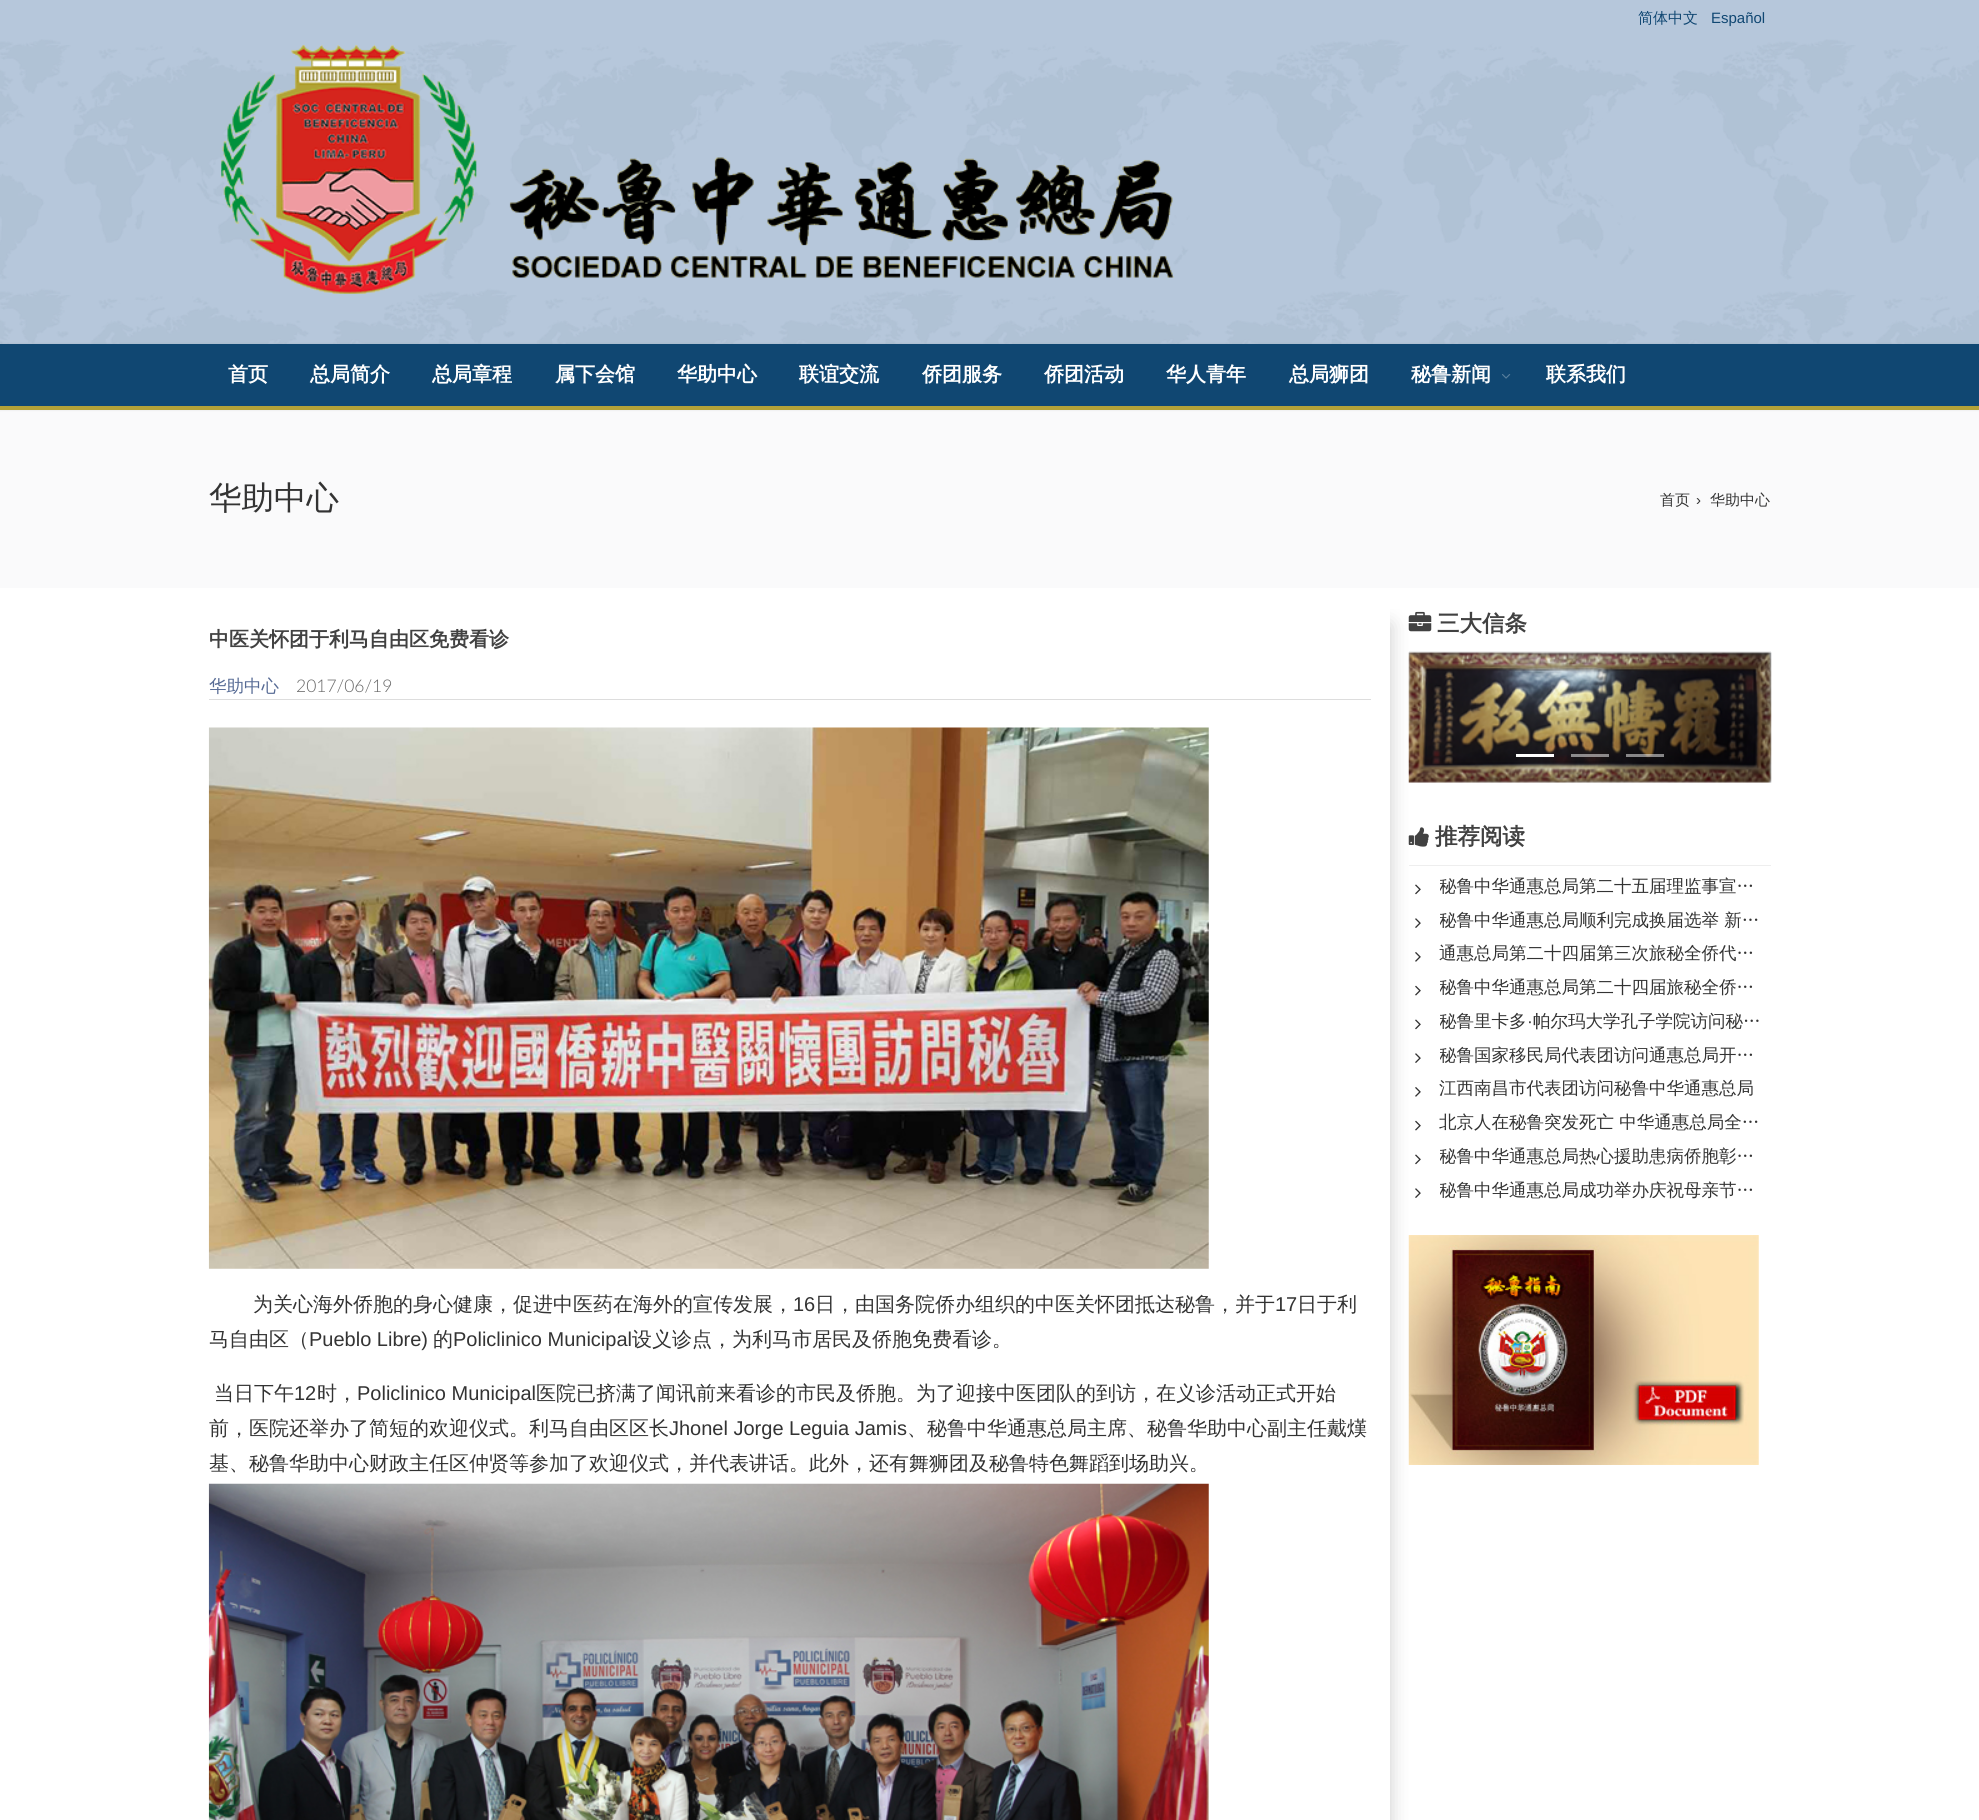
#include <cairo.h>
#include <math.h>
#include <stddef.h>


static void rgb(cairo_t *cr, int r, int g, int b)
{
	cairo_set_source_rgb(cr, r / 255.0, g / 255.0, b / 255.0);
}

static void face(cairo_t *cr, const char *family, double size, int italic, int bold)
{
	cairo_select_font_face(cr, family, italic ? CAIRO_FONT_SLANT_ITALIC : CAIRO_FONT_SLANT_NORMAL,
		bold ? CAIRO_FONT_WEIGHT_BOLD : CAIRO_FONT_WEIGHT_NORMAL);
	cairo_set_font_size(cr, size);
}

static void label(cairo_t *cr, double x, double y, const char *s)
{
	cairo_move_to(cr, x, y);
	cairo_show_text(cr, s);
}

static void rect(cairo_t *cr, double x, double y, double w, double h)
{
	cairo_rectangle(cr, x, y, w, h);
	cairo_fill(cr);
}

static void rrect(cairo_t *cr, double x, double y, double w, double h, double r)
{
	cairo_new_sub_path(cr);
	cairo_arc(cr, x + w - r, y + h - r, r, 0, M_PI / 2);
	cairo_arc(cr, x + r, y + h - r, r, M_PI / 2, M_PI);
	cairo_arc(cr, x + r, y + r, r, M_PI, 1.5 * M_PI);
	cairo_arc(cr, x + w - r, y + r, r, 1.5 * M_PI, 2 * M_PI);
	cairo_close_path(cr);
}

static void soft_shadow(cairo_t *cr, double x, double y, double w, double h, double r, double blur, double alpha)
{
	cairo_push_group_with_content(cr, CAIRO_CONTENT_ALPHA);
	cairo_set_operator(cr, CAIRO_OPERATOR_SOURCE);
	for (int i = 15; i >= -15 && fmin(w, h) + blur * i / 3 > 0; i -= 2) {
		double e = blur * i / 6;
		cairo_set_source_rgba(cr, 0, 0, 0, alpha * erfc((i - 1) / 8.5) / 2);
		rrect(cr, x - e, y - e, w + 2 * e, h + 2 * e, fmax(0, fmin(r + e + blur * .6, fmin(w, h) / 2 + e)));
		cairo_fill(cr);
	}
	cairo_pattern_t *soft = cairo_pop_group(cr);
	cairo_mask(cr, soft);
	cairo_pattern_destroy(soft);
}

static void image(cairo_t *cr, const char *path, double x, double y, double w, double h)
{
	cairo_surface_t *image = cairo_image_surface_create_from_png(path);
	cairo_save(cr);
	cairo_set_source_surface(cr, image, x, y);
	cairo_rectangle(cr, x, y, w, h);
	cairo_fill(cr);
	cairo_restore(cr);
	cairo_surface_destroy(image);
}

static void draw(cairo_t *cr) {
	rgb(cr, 255, 255, 255);
	cairo_paint(cr);
	rgb(cr, 182, 199, 219);
	rect(cr, 0, 0, 1979, 344);
	face(cr, "WenQuanYi Zen Hei Medium", 15, 0, 0);
	rgb(cr, 16, 71, 114);
	label(cr, 1638, 23, "简体中文");
	face(cr, "Liberation Sans", 15, 0, 0);
	label(cr, 1711, 23, "Español");
	image(cr, "image0.png", 0, 39, 1979, 305);
	image(cr, "image1.png", 221, 44, 953, 250);
	rgb(cr, 250, 250, 251);
	rect(cr, 0, 410, 1979, 178);
	rgb(cr, 0, 0, 0);
	soft_shadow(cr, 0, 344, 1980, 66, 0, 1, 0.1);
	rgb(cr, 16, 71, 114);
	rect(cr, 0, 344, 1979, 62);
	rgb(cr, 179, 162, 56);
	rect(cr, 0, 406, 1979, 4);
	face(cr, "WenQuanYi Zen Hei", 20, 0, 1);
	rgb(cr, 255, 255, 255);
	label(cr, 228, 381, "首页");
	label(cr, 310, 381, "总局简介");
	label(cr, 432, 381, "总局章程");
	label(cr, 555, 381, "属下会馆");
	label(cr, 677, 381, "华助中心");
	label(cr, 799, 381, "联谊交流");
	label(cr, 922, 381, "侨团服务");
	label(cr, 1044, 381, "侨团活动");
	label(cr, 1166, 381, "华人青年");
	label(cr, 1289, 381, "总局狮团");
	label(cr, 1411, 381, "秘鲁新闻");
	image(cr, "image2.png", 1502, 374, 9, 5);
	label(cr, 1546, 381, "联系我们");
	face(cr, "WenQuanYi Zen Hei Medium", 32.5, 0, 0);
	rgb(cr, 51, 51, 51);
	label(cr, 209, 509, "华助中心");
	face(cr, "WenQuanYi Zen Hei Medium", 15, 0, 0);
	label(cr, 1660, 505, "首页");
	face(cr, "Liberation Sans", 15, 0, 0);
	label(cr, 1696, 505, "›");
	face(cr, "WenQuanYi Zen Hei Medium", 15, 0, 0);
	label(cr, 1710, 505, "华助中心");
	cairo_save(cr);
	cairo_rectangle(cr, 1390, 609, 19, 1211);
	cairo_clip(cr);
	rgb(cr, 204, 204, 204);
	soft_shadow(cr, 228, 625, 1162, 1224, 0, 9.5, 1);
	cairo_restore(cr);
	face(cr, "WenQuanYi Zen Hei", 20, 0, 1);
	rgb(cr, 65, 65, 65);
	label(cr, 209, 646, "中医关怀团于利马自由区免费看诊");
	rgb(cr, 221, 221, 221);
	rect(cr, 209, 699, 1162, 1);
	face(cr, "WenQuanYi Zen Hei Medium", 17.5, 0, 0);
	rgb(cr, 87, 107, 149);
	label(cr, 209, 692, "华助中心");
	face(cr, "Lato Light", 17.5, 0, 0);
	rgb(cr, 102, 102, 102);
	label(cr, 296, 692, "2017/06/19");
	image(cr, "image3.png", 208, 727, 1001, 542);
	face(cr, "WenQuanYi Zen Hei Medium", 20, 0, 0);
	rgb(cr, 51, 51, 51);
	label(cr, 253, 1311, "为关心海外侨胞的身心健康，促进中医药在海外的宣传发展，");
	face(cr, "Liberation Sans", 20, 0, 0);
	label(cr, 793, 1311, "16");
	face(cr, "WenQuanYi Zen Hei Medium", 20, 0, 0);
	label(cr, 815, 1311, "日，由国务院侨办组织的中医关怀团抵达秘鲁，并于");
	face(cr, "Liberation Sans", 20, 0, 0);
	label(cr, 1275, 1311, "17");
	face(cr, "WenQuanYi Zen Hei Medium", 20, 0, 0);
	label(cr, 1297, 1311, "日于利");
	label(cr, 209, 1346, "马自由区（");
	face(cr, "Liberation Sans", 20, 0, 0);
	label(cr, 309, 1346, "Pueblo Libre)");
	face(cr, "WenQuanYi Zen Hei Medium", 20, 0, 0);
	label(cr, 433, 1346, "的");
	face(cr, "Liberation Sans", 20, 0, 0);
	label(cr, 453, 1346, "Policlinico Municipal");
	face(cr, "WenQuanYi Zen Hei Medium", 20, 0, 0);
	label(cr, 632, 1346, "设义诊点，为利马市居民及侨胞免费看诊。");
	label(cr, 214, 1400, "当日下午");
	face(cr, "Liberation Sans", 20, 0, 0);
	label(cr, 294, 1400, "12");
	face(cr, "WenQuanYi Zen Hei Medium", 20, 0, 0);
	label(cr, 317, 1400, "时，");
	face(cr, "Liberation Sans", 20, 0, 0);
	label(cr, 357, 1400, "Policlinico Municipal");
	face(cr, "WenQuanYi Zen Hei Medium", 20, 0, 0);
	label(cr, 536, 1400, "医院已挤满了闻讯前来看诊的市民及侨胞。为了迎接中医团队的到访，在义诊活动正式开始");
	label(cr, 209, 1435, "前，医院还举办了简短的欢迎仪式。利马自由区区长");
	face(cr, "Liberation Sans", 20, 0, 0);
	label(cr, 669, 1435, "Jhonel Jorge Leguia Jamis");
	face(cr, "WenQuanYi Zen Hei Medium", 20, 0, 0);
	label(cr, 907, 1435, "、秘鲁中华通惠总局主席、秘鲁华助中心副主任戴熯");
	label(cr, 209, 1470, "基、秘鲁华助中心财政主任区仲贤等参加了欢迎仪式，并代表讲话。此外，还有舞狮团及秘鲁特色舞蹈到场助兴。");
	image(cr, "image4.png", 208, 1483, 1001, 337);
	rgb(cr, 238, 238, 238);
	rect(cr, 1409, 651, 362, 1);
	image(cr, "image5.png", 1408, 611, 24, 21);
	face(cr, "WenQuanYi Zen Hei", 22.5, 0, 1);
	rgb(cr, 65, 65, 65);
	label(cr, 1437, 631, "三大信条");
	image(cr, "image6.png", 1408, 652, 364, 131);
	rgb(cr, 255, 255, 255);
	rect(cr, 1516, 754, 38, 3);
	cairo_set_source_rgba(cr, 1, 1, 1, 0.5);
	rect(cr, 1571, 754, 38, 3);
	rect(cr, 1626, 754, 38, 3);
	rgb(cr, 238, 238, 238);
	rect(cr, 1409, 865, 362, 1);
	image(cr, "image7.png", 1408, 827, 21, 20);
	rgb(cr, 65, 65, 65);
	label(cr, 1435, 844, "推荐阅读");
	image(cr, "image8.png", 1415, 884, 6, 11);
	cairo_save(cr);
	cairo_rectangle(cr, 1440, 874, 331, 26);
	cairo_clip(cr);
	face(cr, "WenQuanYi Zen Hei Medium", 17.5, 0, 0);
	rgb(cr, 51, 51, 51);
	label(cr, 1439, 892, "秘鲁中华通惠总局第二十五届理监事宣…");
	cairo_restore(cr);
	image(cr, "image9.png", 1415, 918, 6, 10);
	cairo_save(cr);
	cairo_rectangle(cr, 1440, 908, 331, 26);
	cairo_clip(cr);
	face(cr, "WenQuanYi Zen Hei Medium", 17.5, 0, 0);
	rgb(cr, 51, 51, 51);
	label(cr, 1439, 926, "秘鲁中华通惠总局顺利完成换届选举 新…");
	cairo_restore(cr);
	image(cr, "image10.png", 1415, 952, 6, 10);
	face(cr, "WenQuanYi Zen Hei Medium", 17.5, 0, 0);
	rgb(cr, 51, 51, 51);
	label(cr, 1439, 959, "通惠总局第二十四届第三次旅秘全侨代…");
	image(cr, "image11.png", 1415, 985, 6, 11);
	cairo_save(cr);
	cairo_rectangle(cr, 1440, 975, 331, 26);
	cairo_clip(cr);
	label(cr, 1439, 993, "秘鲁中华通惠总局第二十四届旅秘全侨…");
	cairo_restore(cr);
	image(cr, "image8.png", 1415, 1019, 6, 11);
	cairo_save(cr);
	cairo_rectangle(cr, 1440, 1009, 331, 26);
	cairo_clip(cr);
	label(cr, 1439, 1027, "秘鲁里卡多");
	cairo_restore(cr);
	face(cr, "Liberation Sans", 17.5, 0, 0);
	label(cr, 1527, 1027, "·");
	face(cr, "WenQuanYi Zen Hei Medium", 17.5, 0, 0);
	label(cr, 1533, 1027, "帕尔玛大学孔子学院访问秘…");
	image(cr, "image9.png", 1415, 1053, 6, 10);
	cairo_save(cr);
	cairo_rectangle(cr, 1440, 1043, 331, 26);
	cairo_clip(cr);
	label(cr, 1439, 1061, "秘鲁国家移民局代表团访问通惠总局开…");
	cairo_restore(cr);
	image(cr, "image10.png", 1415, 1087, 6, 10);
	label(cr, 1439, 1094, "江西南昌市代表团访问秘鲁中华通惠总局");
	image(cr, "image11.png", 1415, 1120, 6, 11);
	label(cr, 1439, 1128, "北京人在秘鲁突发死亡 中华通惠总局全…");
	image(cr, "image8.png", 1415, 1154, 6, 11);
	cairo_save(cr);
	cairo_rectangle(cr, 1440, 1144, 331, 26);
	cairo_clip(cr);
	label(cr, 1439, 1162, "秘鲁中华通惠总局热心援助患病侨胞彰…");
	cairo_restore(cr);
	image(cr, "image9.png", 1415, 1188, 6, 10);
	cairo_save(cr);
	cairo_rectangle(cr, 1440, 1178, 331, 26);
	cairo_clip(cr);
	label(cr, 1439, 1196, "秘鲁中华通惠总局成功举办庆祝母亲节…");
	cairo_restore(cr);
	image(cr, "image12.png", 1408, 1235, 351, 230);
}

int main(void) {
	cairo_surface_t *surface = cairo_image_surface_create(CAIRO_FORMAT_RGB24, 1979, 1820);
	cairo_t *cr = cairo_create(surface);
	cairo_font_options_t *options = cairo_font_options_create();
	cairo_font_options_set_hint_metrics(options, CAIRO_HINT_METRICS_OFF);
	cairo_font_options_set_hint_style(options, CAIRO_HINT_STYLE_NONE);
	cairo_set_font_options(cr, options);
	cairo_set_miter_limit(cr, 4);
	draw(cr);
	cairo_surface_write_to_png(surface, "render.png");
	cairo_font_options_destroy(options);
	cairo_destroy(cr);
	cairo_surface_destroy(surface);
	return 0;
}
